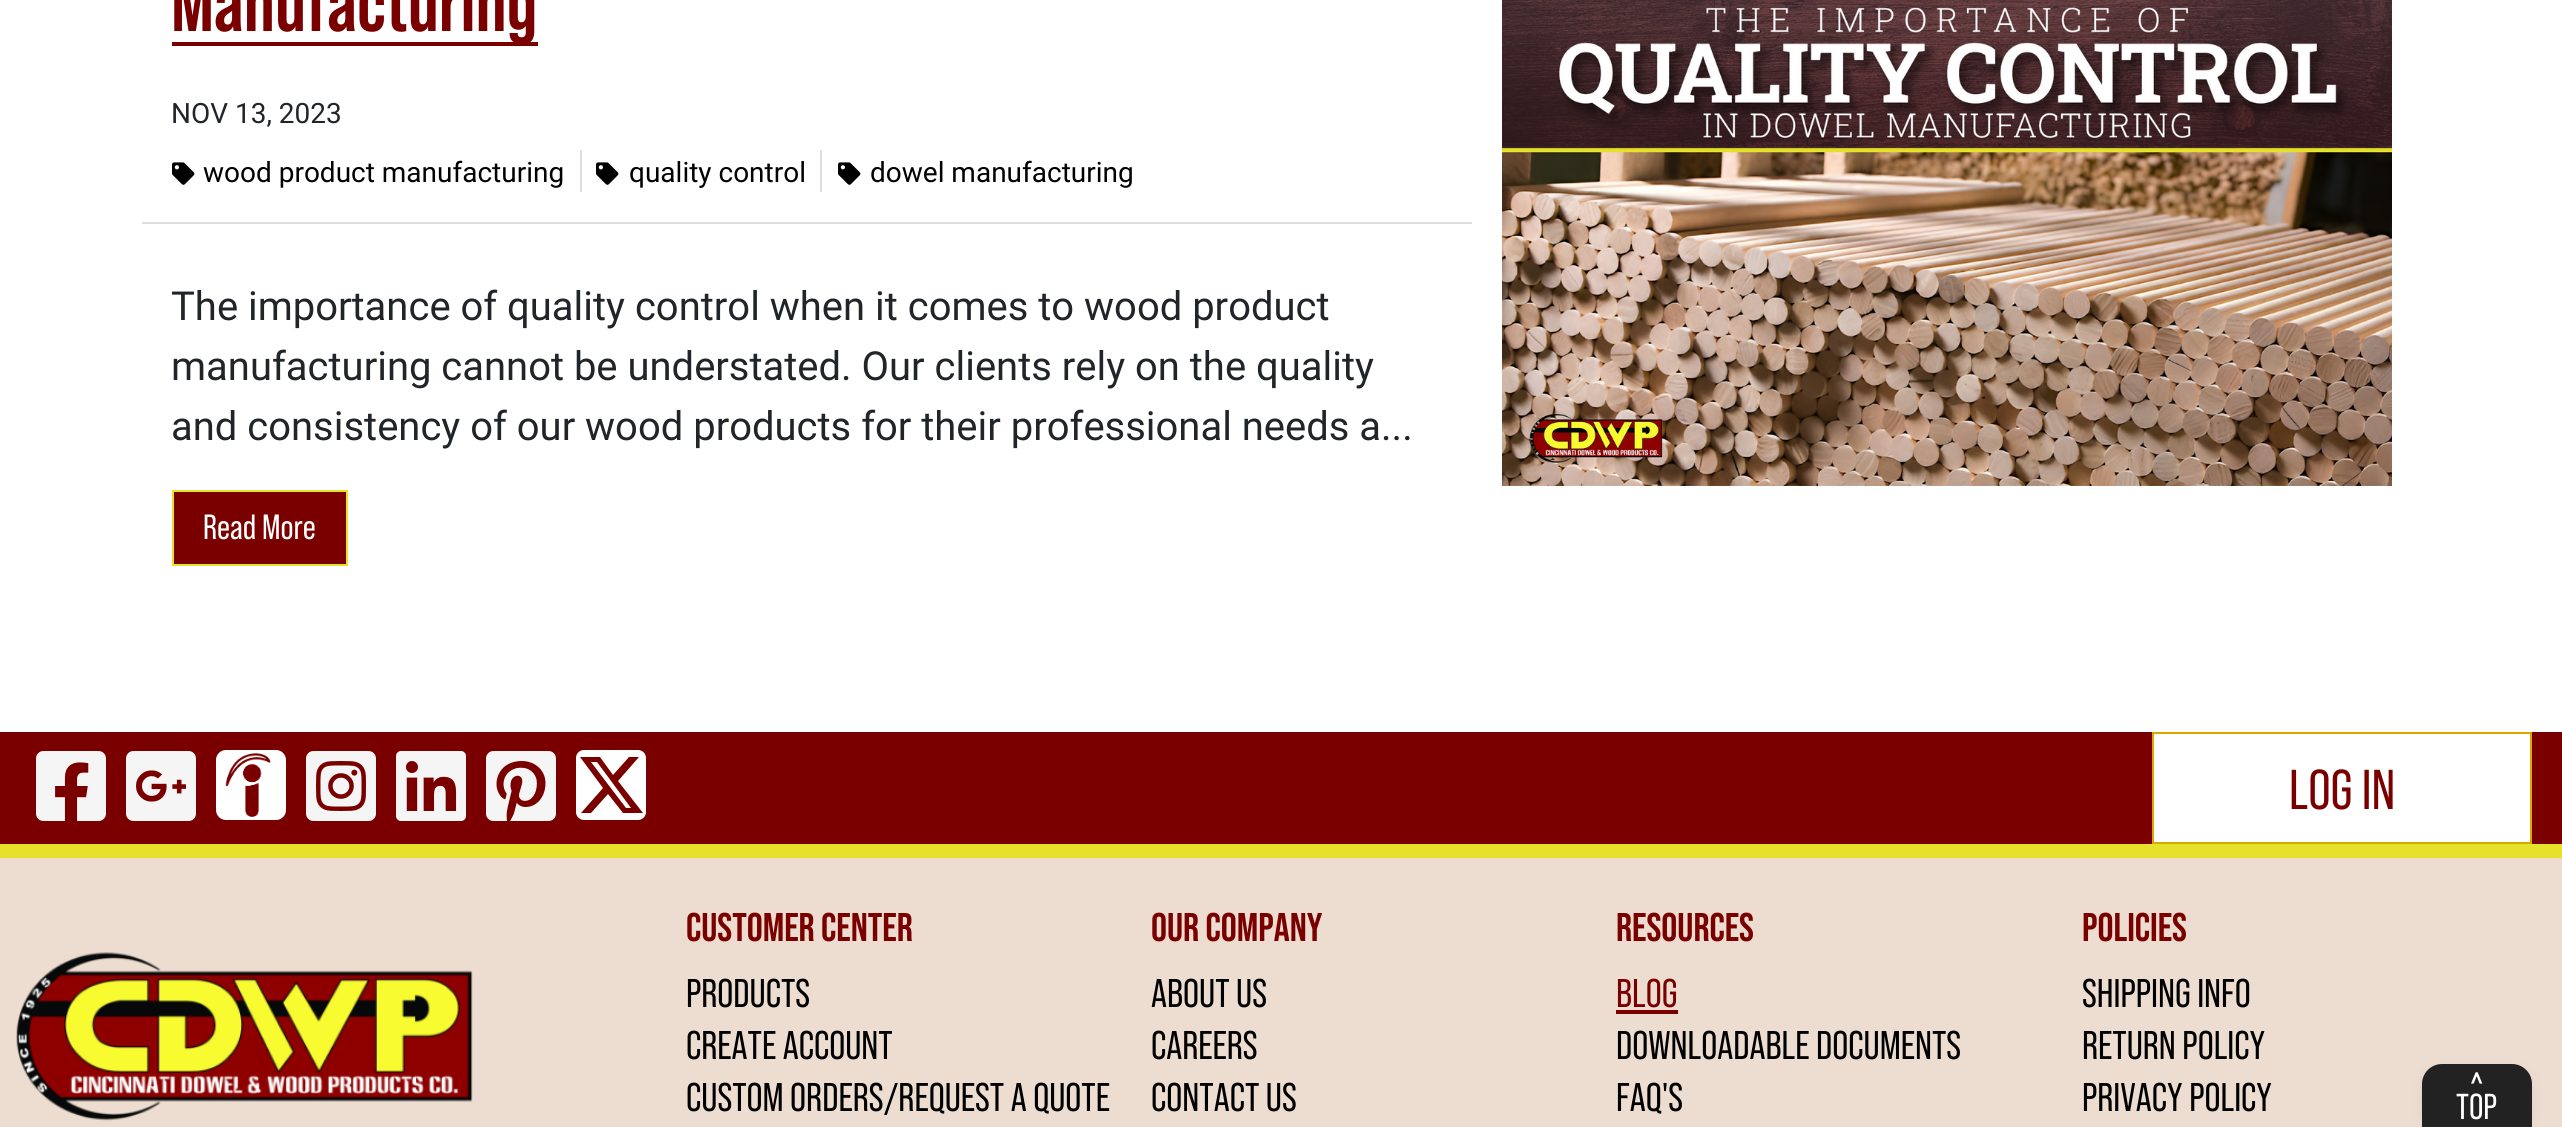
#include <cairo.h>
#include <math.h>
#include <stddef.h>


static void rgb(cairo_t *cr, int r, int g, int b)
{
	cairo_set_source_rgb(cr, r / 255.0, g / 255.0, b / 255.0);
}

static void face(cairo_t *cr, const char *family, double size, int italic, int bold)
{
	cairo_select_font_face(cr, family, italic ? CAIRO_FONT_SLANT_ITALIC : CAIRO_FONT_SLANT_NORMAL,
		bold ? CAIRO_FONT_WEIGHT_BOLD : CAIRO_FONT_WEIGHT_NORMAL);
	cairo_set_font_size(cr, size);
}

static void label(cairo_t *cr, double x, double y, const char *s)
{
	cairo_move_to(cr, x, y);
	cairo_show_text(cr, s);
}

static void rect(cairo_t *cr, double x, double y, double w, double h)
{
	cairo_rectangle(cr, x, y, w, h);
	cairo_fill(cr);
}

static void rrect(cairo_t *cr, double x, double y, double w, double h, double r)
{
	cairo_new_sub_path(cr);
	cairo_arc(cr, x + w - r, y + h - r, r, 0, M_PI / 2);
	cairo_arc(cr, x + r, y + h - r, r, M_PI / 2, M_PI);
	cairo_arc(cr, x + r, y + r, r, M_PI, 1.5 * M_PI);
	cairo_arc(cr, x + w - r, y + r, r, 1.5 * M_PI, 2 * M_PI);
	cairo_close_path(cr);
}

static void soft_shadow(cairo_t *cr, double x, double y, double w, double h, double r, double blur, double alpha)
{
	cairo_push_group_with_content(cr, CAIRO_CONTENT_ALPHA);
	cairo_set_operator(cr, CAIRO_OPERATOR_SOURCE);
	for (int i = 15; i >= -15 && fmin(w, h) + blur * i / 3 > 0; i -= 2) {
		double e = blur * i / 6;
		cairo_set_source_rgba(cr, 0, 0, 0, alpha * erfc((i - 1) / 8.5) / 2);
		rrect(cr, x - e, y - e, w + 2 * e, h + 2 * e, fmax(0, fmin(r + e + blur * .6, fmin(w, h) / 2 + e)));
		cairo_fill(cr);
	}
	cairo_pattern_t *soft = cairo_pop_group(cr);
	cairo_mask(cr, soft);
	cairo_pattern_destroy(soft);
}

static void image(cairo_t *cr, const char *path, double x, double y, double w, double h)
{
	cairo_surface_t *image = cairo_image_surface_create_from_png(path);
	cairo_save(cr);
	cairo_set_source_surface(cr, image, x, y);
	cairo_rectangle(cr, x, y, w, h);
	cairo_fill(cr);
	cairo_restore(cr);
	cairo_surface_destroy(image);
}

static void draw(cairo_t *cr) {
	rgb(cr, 255, 255, 255);
	cairo_paint(cr);
	rgb(cr, 221, 221, 221);
	rect(cr, 142, 222, 1330, 2);
	rgb(cr, 122, 0, 0);
	rect(cr, 172, 42, 366, 4);
	face(cr, "Bebas Neue", 80, 0, 1);
	label(cr, 171, 31, "Manufacturing");
	face(cr, "Roboto", 28, 0, 0);
	rgb(cr, 33, 37, 41);
	label(cr, 171, 123, "NOV 13, 2023");
	image(cr, "image0.png", 172, 162, 23, 23);
	rgb(cr, 0, 0, 0);
	label(cr, 203, 182, "wood product manufacturing");
	rgb(cr, 221, 221, 221);
	rect(cr, 580, 150, 2, 42);
	image(cr, "image0.png", 596, 162, 23, 23);
	rgb(cr, 0, 0, 0);
	label(cr, 629, 182, "quality control");
	rgb(cr, 221, 221, 221);
	rect(cr, 820, 150, 2, 42);
	image(cr, "image0.png", 838, 162, 23, 23);
	rgb(cr, 0, 0, 0);
	label(cr, 870, 182, "dowel manufacturing");
	face(cr, "Roboto", 40, 0, 0);
	rgb(cr, 33, 37, 41);
	label(cr, 171, 320, "The importance of quality control when it comes to wood product");
	label(cr, 171, 380, "manufacturing cannot be understated. Our clients rely on the quality");
	label(cr, 171, 440, "and consistency of our wood products for their professional needs a...");
	rgb(cr, 122, 0, 0);
	cairo_rectangle(cr, 173, 491, 174, 74);
	cairo_fill_preserve(cr);
	rgb(cr, 230, 225, 42);
	cairo_stroke(cr);
	face(cr, "Bebas Neue", 35, 0, 0);
	rgb(cr, 255, 255, 255);
	label(cr, 203, 539, "Read More");
	image(cr, "image1.png", 1502, 0, 890, 486);
	rgb(cr, 122, 0, 0);
	rect(cr, 0, 732, 2562, 112);
	image(cr, "image2.png", 36, 751, 70, 70);
	image(cr, "image3.png", 126, 751, 70, 70);
	rgb(cr, 255, 255, 255);
	rrect(cr, 216, 750, 70, 70, 10);
	cairo_fill(cr);
	image(cr, "image4.png", 225, 753, 46, 64);
	image(cr, "image5.png", 306, 751, 70, 70);
	image(cr, "image6.png", 396, 751, 70, 70);
	image(cr, "image7.png", 486, 751, 70, 70);
	rrect(cr, 576, 750, 70, 70, 8);
	cairo_fill(cr);
	rgb(cr, 122, 0, 0);
	cairo_new_path(cr);
	cairo_move_to(cr, 629, 757);
	cairo_line_to(cr, 639, 757);
	cairo_line_to(cr, 618, 781);
	cairo_line_to(cr, 643, 813);
	cairo_line_to(cr, 623, 813);
	cairo_line_to(cr, 608, 794);
	cairo_line_to(cr, 591, 813);
	cairo_line_to(cr, 581, 813);
	cairo_line_to(cr, 603, 788);
	cairo_line_to(cr, 580, 757);
	cairo_line_to(cr, 600, 757);
	cairo_line_to(cr, 613, 775);
	cairo_close_path(cr);
	cairo_move_to(cr, 626, 808);
	cairo_line_to(cr, 631, 808);
	cairo_line_to(cr, 597, 762);
	cairo_line_to(cr, 591, 762);
	cairo_close_path(cr);
	cairo_fill(cr);
	rgb(cr, 255, 255, 255);
	cairo_rectangle(cr, 2153, 733, 378, 110);
	cairo_fill_preserve(cr);
	rgb(cr, 219, 168, 0);
	cairo_stroke(cr);
	face(cr, "Bebas Neue", 56, 0, 0);
	rgb(cr, 122, 0, 0);
	label(cr, 2289, 809, "LOG IN");
	rgb(cr, 236, 221, 208);
	rect(cr, 0, 858, 2562, 269);
	rgb(cr, 230, 225, 42);
	rect(cr, 0, 844, 2562, 14);
	image(cr, "image8.png", 16, 952, 457, 169);
	face(cr, "Bebas Neue", 40, 0, 1);
	rgb(cr, 122, 0, 0);
	label(cr, 686, 941, "CUSTOMER CENTER");
	face(cr, "Bebas Neue", 40, 0, 0);
	rgb(cr, 0, 0, 0);
	label(cr, 686, 1007, "PRODUCTS");
	label(cr, 686, 1059, "CREATE ACCOUNT");
	label(cr, 686, 1111, "CUSTOM ORDERS/REQUEST A QUOTE");
	face(cr, "Bebas Neue", 40, 0, 1);
	rgb(cr, 122, 0, 0);
	label(cr, 1151, 941, "OUR COMPANY");
	face(cr, "Bebas Neue", 40, 0, 0);
	rgb(cr, 0, 0, 0);
	label(cr, 1151, 1007, "ABOUT US");
	label(cr, 1151, 1059, "CAREERS");
	label(cr, 1151, 1111, "CONTACT US");
	face(cr, "Bebas Neue", 40, 0, 1);
	rgb(cr, 122, 0, 0);
	label(cr, 1616, 941, "RESOURCES");
	face(cr, "Bebas Neue", 40, 0, 0);
	label(cr, 1616, 1007, "BLOG");
	rect(cr, 1616, 1010, 62, 4);
	rgb(cr, 0, 0, 0);
	label(cr, 1616, 1059, "DOWNLOADABLE DOCUMENTS");
	label(cr, 1616, 1111, "FAQ'S");
	face(cr, "Bebas Neue", 40, 0, 1);
	rgb(cr, 122, 0, 0);
	label(cr, 2082, 941, "POLICIES");
	face(cr, "Bebas Neue", 40, 0, 0);
	rgb(cr, 0, 0, 0);
	label(cr, 2082, 1007, "SHIPPING INFO");
	label(cr, 2082, 1059, "RETURN POLICY");
	label(cr, 2082, 1111, "PRIVACY POLICY");
	rgb(cr, 33, 33, 33);
	soft_shadow(cr, 2436, 1082, 82, 36, 6, 10, 0.5);
	rgb(cr, 34, 34, 34);
	cairo_new_path(cr);
	cairo_move_to(cr, 2442, 1064);
	cairo_line_to(cr, 2512, 1064);
	cairo_curve_to(cr, 2523, 1064, 2532, 1073, 2532, 1084);
	cairo_line_to(cr, 2532, 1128);
	cairo_line_to(cr, 2422, 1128);
	cairo_line_to(cr, 2422, 1084);
	cairo_curve_to(cr, 2422, 1073, 2431, 1064, 2442, 1064);
	cairo_close_path(cr);
	cairo_fill(cr);
	face(cr, "Roboto", 32, 0, 0);
	rgb(cr, 255, 255, 255);
	label(cr, 2470, 1095, "^");
	face(cr, "Bebas Neue", 36, 0, 0);
	label(cr, 2456, 1119, "TOP");
}

int main(void) {
	cairo_surface_t *surface = cairo_image_surface_create(CAIRO_FORMAT_RGB24, 2562, 1127);
	cairo_t *cr = cairo_create(surface);
	cairo_font_options_t *options = cairo_font_options_create();
	cairo_font_options_set_hint_metrics(options, CAIRO_HINT_METRICS_OFF);
	cairo_font_options_set_hint_style(options, CAIRO_HINT_STYLE_NONE);
	cairo_set_font_options(cr, options);
	cairo_set_miter_limit(cr, 4);
	draw(cr);
	cairo_surface_write_to_png(surface, "render.png");
	cairo_font_options_destroy(options);
	cairo_destroy(cr);
	cairo_surface_destroy(surface);
	return 0;
}
